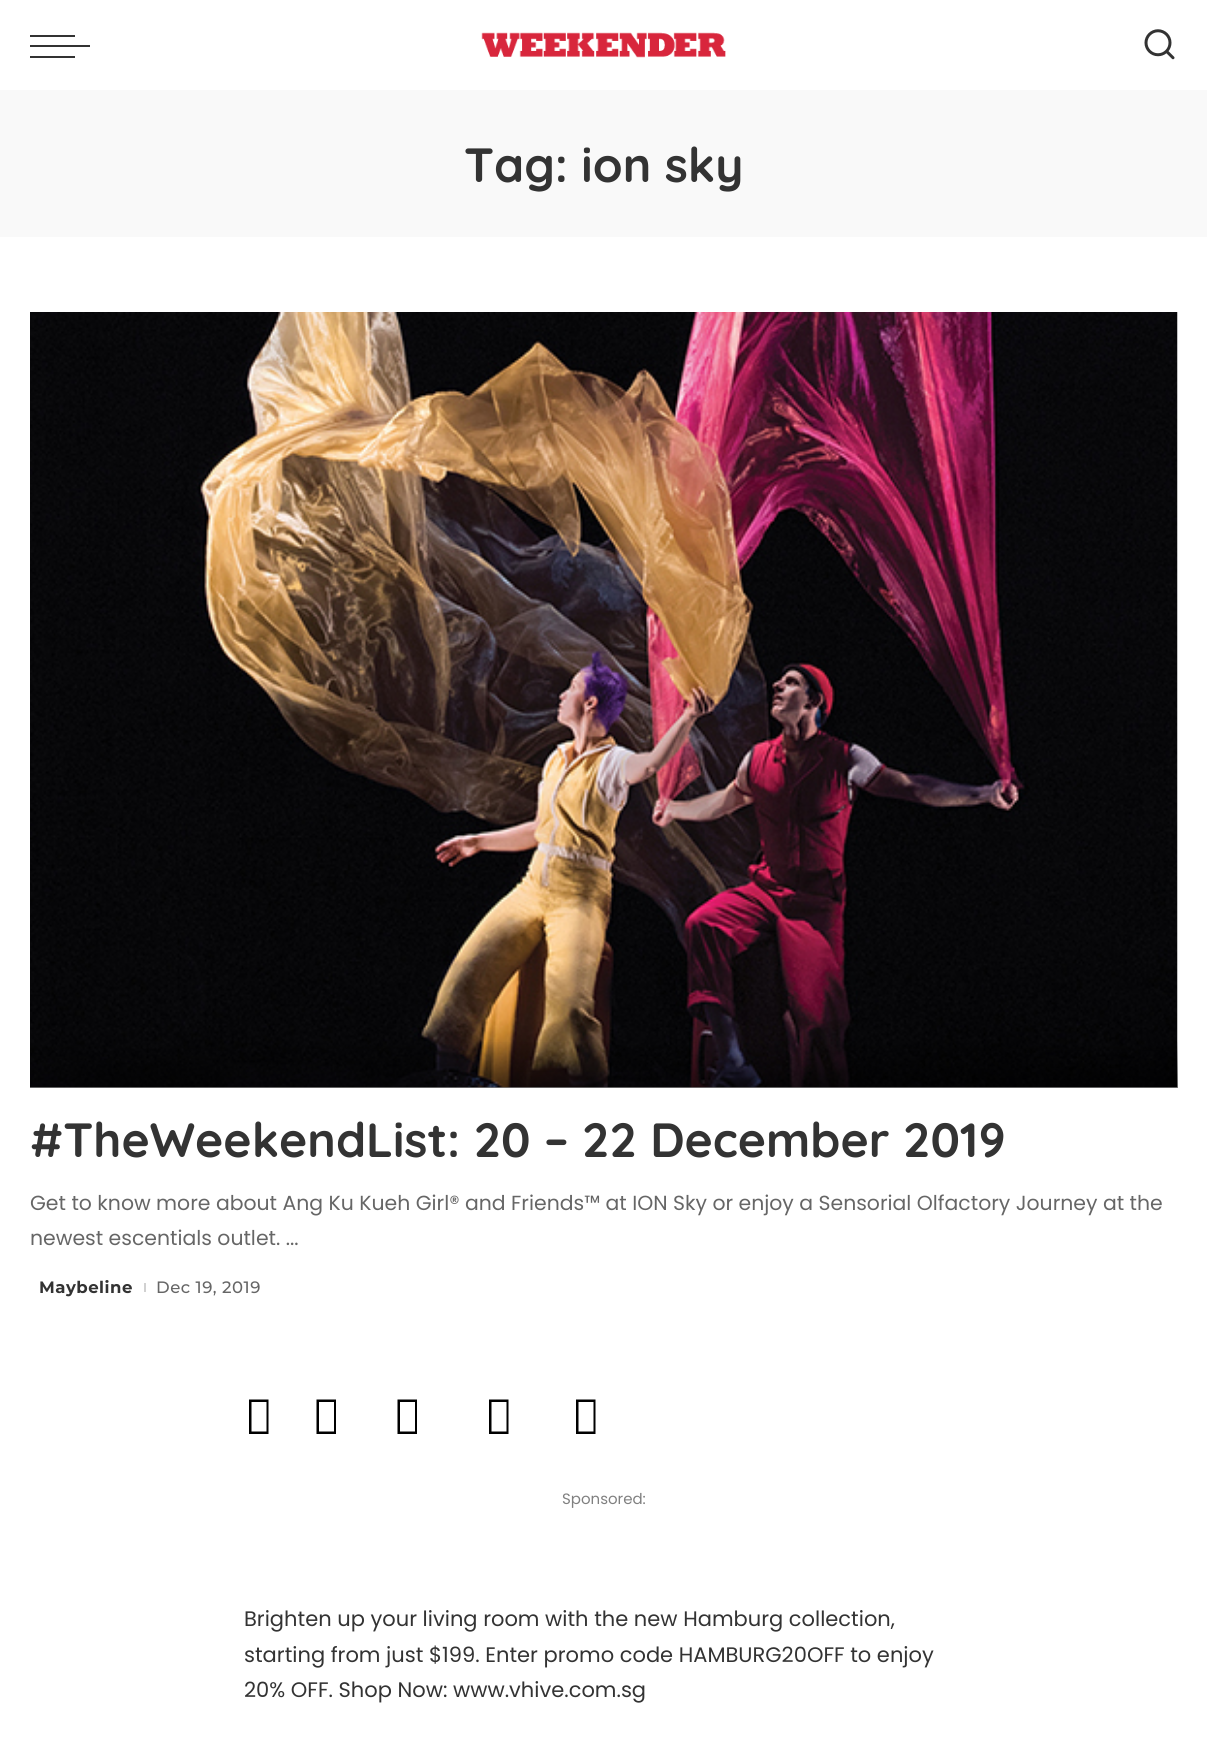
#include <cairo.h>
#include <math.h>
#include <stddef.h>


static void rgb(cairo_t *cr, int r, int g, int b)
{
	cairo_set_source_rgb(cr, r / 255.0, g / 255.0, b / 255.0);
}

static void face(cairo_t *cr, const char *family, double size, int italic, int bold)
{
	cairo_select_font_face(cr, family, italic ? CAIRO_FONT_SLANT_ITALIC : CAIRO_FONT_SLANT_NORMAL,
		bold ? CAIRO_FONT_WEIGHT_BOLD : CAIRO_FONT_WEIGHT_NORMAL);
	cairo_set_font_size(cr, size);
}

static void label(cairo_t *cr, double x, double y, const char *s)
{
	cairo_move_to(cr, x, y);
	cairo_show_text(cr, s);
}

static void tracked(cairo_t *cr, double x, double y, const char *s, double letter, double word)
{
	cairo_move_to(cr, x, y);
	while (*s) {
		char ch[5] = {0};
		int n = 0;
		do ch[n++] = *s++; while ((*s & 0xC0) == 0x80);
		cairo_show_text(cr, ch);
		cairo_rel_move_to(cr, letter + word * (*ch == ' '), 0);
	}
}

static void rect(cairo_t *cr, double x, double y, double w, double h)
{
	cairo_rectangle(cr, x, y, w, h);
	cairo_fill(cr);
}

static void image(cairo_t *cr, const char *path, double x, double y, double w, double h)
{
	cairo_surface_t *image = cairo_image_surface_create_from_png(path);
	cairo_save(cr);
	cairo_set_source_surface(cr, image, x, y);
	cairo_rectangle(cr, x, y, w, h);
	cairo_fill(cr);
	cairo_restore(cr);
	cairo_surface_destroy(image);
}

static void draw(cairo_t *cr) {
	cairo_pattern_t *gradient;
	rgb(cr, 255, 255, 255);
	cairo_paint(cr);
	rgb(cr, 51, 51, 51);
	rect(cr, 30, 45, 60, 2);
	rect(cr, 30, 35, 45, 2);
	rect(cr, 30, 56, 45, 2);
	image(cr, "image0.png", 481, 32, 245, 26);
	image(cr, "image1.png", 1144, 29, 31, 31);
	rgb(cr, 249, 249, 249);
	rect(cr, 0, 90, 1207, 147);
	face(cr, "Quicksand", 48, 0, 1);
	rgb(cr, 51, 51, 51);
	label(cr, 464, 182, "Tag: ion sky");
	image(cr, "image2.png", 30, 312, 1148, 776);
	gradient = cairo_pattern_create_linear(604, 1040, 604, 1088);
	cairo_pattern_add_color_stop_rgba(gradient, 0, 0, 0, 0, 0);
	cairo_pattern_add_color_stop_rgba(gradient, 1, 0, 0, 0, 0.5);
	cairo_set_source(cr, gradient);
	cairo_pattern_destroy(gradient);
	rect(cr, 30, 1042, 1148, 46);
	rgb(cr, 51, 51, 51);
	label(cr, 30, 1157, "#TheWeekendList: 20 – 22 December 2019");
	face(cr, "Poppins", 20.4, 0, 0);
	rgb(cr, 102, 102, 102);
	label(cr, 30, 1210, "Get to know more about Ang Ku Kueh Girl® and Friends™ at ION Sky or enjoy a Sensorial Olfactory Journey at the");
	label(cr, 30, 1245, "newest escentials outlet. ...");
	face(cr, "Montserrat", 16.5, 0, 1);
	rgb(cr, 51, 51, 51);
	tracked(cr, 39, 1293, "Maybeline", 0.5, 0);
	rgb(cr, 209, 209, 209);
	rect(cr, 144, 1283, 2, 9);
	face(cr, "Montserrat Medium", 16.5, 0, 0);
	rgb(cr, 102, 102, 102);
	tracked(cr, 156, 1293, "Dec 19, 2019", 0.5, 0);
	rgb(cr, 0, 0, 0);
	cairo_new_path(cr);
	cairo_move_to(cr, 249, 1434);
	cairo_line_to(cr, 249, 1399.5);
	cairo_line_to(cr, 268.5, 1399.5);
	cairo_line_to(cr, 268.5, 1434);
	cairo_close_path(cr);
	cairo_move_to(cr, 251.5, 1431.5);
	cairo_line_to(cr, 266.5, 1431.5);
	cairo_line_to(cr, 266.5, 1402);
	cairo_line_to(cr, 251.5, 1402);
	cairo_close_path(cr);
	cairo_fill(cr);
	cairo_new_path(cr);
	cairo_move_to(cr, 316.5, 1434);
	cairo_line_to(cr, 316.5, 1399.5);
	cairo_line_to(cr, 336, 1399.5);
	cairo_line_to(cr, 336, 1434);
	cairo_close_path(cr);
	cairo_move_to(cr, 319, 1431.5);
	cairo_line_to(cr, 334, 1431.5);
	cairo_line_to(cr, 334, 1402);
	cairo_line_to(cr, 319, 1402);
	cairo_close_path(cr);
	cairo_fill(cr);
	cairo_new_path(cr);
	cairo_move_to(cr, 397.5, 1434);
	cairo_line_to(cr, 397.5, 1399.5);
	cairo_line_to(cr, 417, 1399.5);
	cairo_line_to(cr, 417, 1434);
	cairo_close_path(cr);
	cairo_move_to(cr, 400, 1431.5);
	cairo_line_to(cr, 415, 1431.5);
	cairo_line_to(cr, 415, 1402);
	cairo_line_to(cr, 400, 1402);
	cairo_close_path(cr);
	cairo_fill(cr);
	cairo_new_path(cr);
	cairo_move_to(cr, 489, 1434);
	cairo_line_to(cr, 489, 1399.5);
	cairo_line_to(cr, 508.5, 1399.5);
	cairo_line_to(cr, 508.5, 1434);
	cairo_close_path(cr);
	cairo_move_to(cr, 491.5, 1431.5);
	cairo_line_to(cr, 506.5, 1431.5);
	cairo_line_to(cr, 506.5, 1402);
	cairo_line_to(cr, 491.5, 1402);
	cairo_close_path(cr);
	cairo_fill(cr);
	cairo_new_path(cr);
	cairo_move_to(cr, 576, 1434);
	cairo_line_to(cr, 576, 1399.5);
	cairo_line_to(cr, 595.5, 1399.5);
	cairo_line_to(cr, 595.5, 1434);
	cairo_close_path(cr);
	cairo_move_to(cr, 578.5, 1431.5);
	cairo_line_to(cr, 593.5, 1431.5);
	cairo_line_to(cr, 593.5, 1402);
	cairo_line_to(cr, 578.5, 1402);
	cairo_close_path(cr);
	cairo_fill(cr);
	face(cr, "Poppins", 15, 0, 0);
	rgb(cr, 128, 128, 128);
	label(cr, 562, 1504, "Sponsored:");
	face(cr, "Poppins", 21, 0, 0);
	rgb(cr, 51, 51, 51);
	label(cr, 244, 1626, "Brighten up your living room with the new Hamburg collection,");
	label(cr, 244, 1662, "starting from just $199. Enter promo code HAMBURG20OFF to enjoy");
	label(cr, 244, 1697, "20% OFF. Shop Now: www.vhive.com.sg");
}

int main(void) {
	cairo_surface_t *surface = cairo_image_surface_create(CAIRO_FORMAT_RGB24, 1207, 1745);
	cairo_t *cr = cairo_create(surface);
	cairo_font_options_t *options = cairo_font_options_create();
	cairo_font_options_set_hint_metrics(options, CAIRO_HINT_METRICS_OFF);
	cairo_font_options_set_hint_style(options, CAIRO_HINT_STYLE_NONE);
	cairo_set_font_options(cr, options);
	cairo_set_miter_limit(cr, 4);
	draw(cr);
	cairo_surface_write_to_png(surface, "render.png");
	cairo_font_options_destroy(options);
	cairo_destroy(cr);
	cairo_surface_destroy(surface);
	return 0;
}
